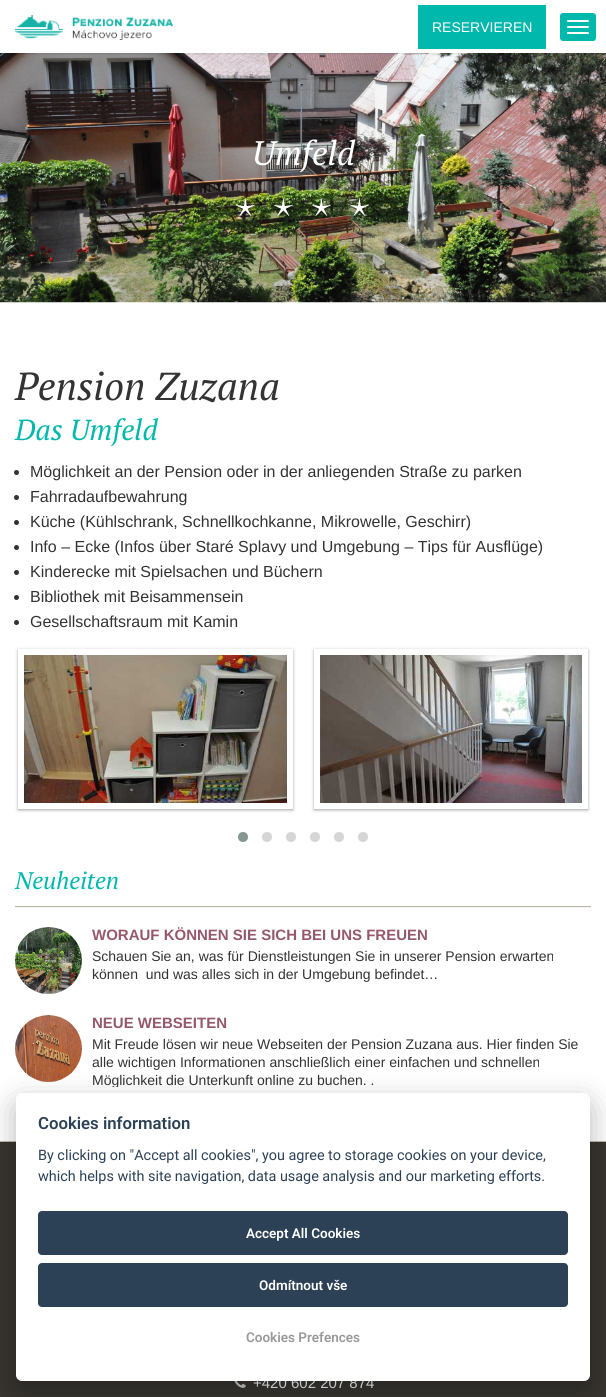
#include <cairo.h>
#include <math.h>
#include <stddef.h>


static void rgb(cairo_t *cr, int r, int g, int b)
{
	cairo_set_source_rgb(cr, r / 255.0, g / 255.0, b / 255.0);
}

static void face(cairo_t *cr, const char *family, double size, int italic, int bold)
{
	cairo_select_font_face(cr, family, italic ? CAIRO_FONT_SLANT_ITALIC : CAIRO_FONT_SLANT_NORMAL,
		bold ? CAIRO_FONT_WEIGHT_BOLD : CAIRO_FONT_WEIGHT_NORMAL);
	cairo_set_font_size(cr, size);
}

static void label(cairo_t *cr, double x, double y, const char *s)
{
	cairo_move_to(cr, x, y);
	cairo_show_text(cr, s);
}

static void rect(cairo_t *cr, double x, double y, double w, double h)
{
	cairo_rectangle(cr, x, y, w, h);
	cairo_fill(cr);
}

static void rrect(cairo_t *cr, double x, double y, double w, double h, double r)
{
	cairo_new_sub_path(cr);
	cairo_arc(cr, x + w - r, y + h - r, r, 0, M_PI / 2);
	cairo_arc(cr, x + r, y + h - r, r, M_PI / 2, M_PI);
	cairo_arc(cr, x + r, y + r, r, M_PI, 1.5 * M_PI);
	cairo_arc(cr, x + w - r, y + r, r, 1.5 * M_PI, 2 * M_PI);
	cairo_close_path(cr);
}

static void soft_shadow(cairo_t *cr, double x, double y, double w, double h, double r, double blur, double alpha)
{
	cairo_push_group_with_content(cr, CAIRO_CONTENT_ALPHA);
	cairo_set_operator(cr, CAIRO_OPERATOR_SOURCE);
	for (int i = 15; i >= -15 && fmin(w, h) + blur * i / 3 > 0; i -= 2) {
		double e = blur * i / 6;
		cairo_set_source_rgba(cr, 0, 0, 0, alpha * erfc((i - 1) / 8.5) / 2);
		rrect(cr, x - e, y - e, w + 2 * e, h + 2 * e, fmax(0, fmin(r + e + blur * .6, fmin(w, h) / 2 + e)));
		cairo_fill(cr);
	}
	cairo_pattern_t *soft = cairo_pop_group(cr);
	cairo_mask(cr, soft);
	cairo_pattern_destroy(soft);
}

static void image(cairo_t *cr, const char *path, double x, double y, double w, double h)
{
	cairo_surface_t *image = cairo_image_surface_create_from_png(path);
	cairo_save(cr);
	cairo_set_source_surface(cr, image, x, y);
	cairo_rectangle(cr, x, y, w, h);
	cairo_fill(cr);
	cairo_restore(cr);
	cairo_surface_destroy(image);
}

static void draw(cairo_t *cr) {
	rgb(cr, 255, 255, 255);
	cairo_paint(cr);
	image(cr, "image1.png", 0, 53, 606, 250);
	cairo_save(cr);
	cairo_rectangle(cr, 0, 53, 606, 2);
	cairo_clip(cr);
	rgb(cr, 0, 0, 0);
	soft_shadow(cr, 0, 1, 606, 53, 0, 1, 0.1);
	cairo_restore(cr);
	image(cr, "image0.png", 15, 15, 158, 25);
	rgb(cr, 0, 184, 171);
	rect(cr, 418, 5, 128, 44);
	face(cr, "Liberation Sans", 14, 0, 0);
	rgb(cr, 255, 255, 255);
	label(cr, 432, 32, "RESERVIEREN");
	rgb(cr, 0, 184, 171);
	rrect(cr, 560, 13, 36, 28, 3);
	cairo_fill(cr);
	rgb(cr, 255, 255, 255);
	rrect(cr, 567, 20, 22, 2, 1);
	cairo_fill(cr);
	rrect(cr, 567, 26, 22, 2, 1);
	cairo_fill(cr);
	rrect(cr, 567, 32, 22, 2, 1);
	cairo_fill(cr);
	cairo_set_source_rgba(cr, 1, 1, 1, 0.77);
	rect(cr, 0, 302, 606, 1);
	face(cr, "PT Serif", 34, 1, 0);
	rgb(cr, 255, 255, 255);
	label(cr, 252, 165, "Umfeld");
	image(cr, "image2.png", 235, 198, 135, 21);
	face(cr, "PT Serif", 39, 1, 0);
	rgb(cr, 51, 51, 51);
	label(cr, 15, 400, "Pension Zuzana");
	face(cr, "PT Serif", 29, 1, 0);
	rgb(cr, 0, 184, 171);
	label(cr, 15, 440, "Das Umfeld");
	rgb(cr, 51, 51, 51);
	cairo_new_path(cr);
	cairo_arc(cr, 16.5, 472.5, 2.5, 0, 2 * M_PI);
	cairo_fill(cr);
	face(cr, "Liberation Sans", 16, 0, 0);
	label(cr, 30, 477, "Möglichkeit an der Pension oder in der anliegenden Straße zu parken");
	cairo_new_path(cr);
	cairo_arc(cr, 16.5, 497.5, 2.5, 0, 2 * M_PI);
	cairo_fill(cr);
	label(cr, 30, 502, "Fahrradaufbewahrung");
	cairo_new_path(cr);
	cairo_arc(cr, 16.5, 522.5, 2.5, 0, 2 * M_PI);
	cairo_fill(cr);
	label(cr, 30, 527, "Küche (Kühlschrank, Schnellkochkanne, Mikrowelle, Geschirr)");
	cairo_new_path(cr);
	cairo_arc(cr, 16.5, 547.5, 2.5, 0, 2 * M_PI);
	cairo_fill(cr);
	label(cr, 30, 552, "Info – Ecke (Infos über Staré Splavy und Umgebung – Tips für Ausflüge)");
	cairo_new_path(cr);
	cairo_arc(cr, 16.5, 572.5, 2.5, 0, 2 * M_PI);
	cairo_fill(cr);
	label(cr, 30, 577, "Kinderecke mit Spielsachen und Büchern");
	cairo_new_path(cr);
	cairo_arc(cr, 16.5, 597.5, 2.5, 0, 2 * M_PI);
	cairo_fill(cr);
	label(cr, 30, 602, "Bibliothek mit Beisammensein");
	cairo_new_path(cr);
	cairo_arc(cr, 16.5, 622.5, 2.5, 0, 2 * M_PI);
	cairo_fill(cr);
	label(cr, 30, 627, "Gesellschaftsraum mit Kamin");
	rgb(cr, 34, 25, 25);
	soft_shadow(cr, 18, 650, 275, 160, 0, 1.5, 0.4);
	image(cr, "image3.png", 24, 655, 263, 148);
	cairo_rectangle(cr, 21, 652, 269, 154);
	rgb(cr, 255, 255, 255);
	cairo_set_line_width(cr, 6);
	cairo_stroke(cr);
	rgb(cr, 34, 25, 25);
	soft_shadow(cr, 314, 650, 274, 160, 0, 1.5, 0.4);
	image(cr, "image4.png", 320, 655, 262, 148);
	cairo_rectangle(cr, 317, 652, 268, 154);
	rgb(cr, 255, 255, 255);
	cairo_stroke(cr);
	rgb(cr, 134, 151, 145);
	cairo_arc(cr, 243, 837, 5, 0, 2 * M_PI);
	cairo_fill(cr);
	rgb(cr, 214, 214, 214);
	cairo_arc(cr, 267, 837, 5, 0, 2 * M_PI);
	cairo_fill(cr);
	cairo_arc(cr, 291, 837, 5, 0, 2 * M_PI);
	cairo_fill(cr);
	cairo_arc(cr, 315, 837, 5, 0, 2 * M_PI);
	cairo_fill(cr);
	cairo_arc(cr, 339, 837, 5, 0, 2 * M_PI);
	cairo_fill(cr);
	cairo_arc(cr, 363, 837, 5, 0, 2 * M_PI);
	cairo_fill(cr);
	rgb(cr, 243, 243, 243);
	rect(cr, 15, 907, 576, 1);
	rgb(cr, 191, 182, 170);
	rect(cr, 15, 906, 576, 1);
	face(cr, "PT Serif", 24, 1, 0);
	rgb(cr, 0, 184, 171);
	label(cr, 15, 889, "Neuheiten");
	image(cr, "image5.png", 15, 927, 67, 67);
	face(cr, "Liberation Sans", 15, 0, 1);
	rgb(cr, 149, 89, 107);
	label(cr, 92, 940, "WORAUF KÖNNEN SIE SICH BEI UNS FREUEN");
	face(cr, "Liberation Sans", 14, 0, 0);
	rgb(cr, 51, 51, 51);
	label(cr, 92, 961, "Schauen Sie an, was für Dienstleistungen Sie in unserer Pension erwarten");
	label(cr, 92, 979, "können  und was alles sich in der Umgebung befindet…");
	image(cr, "image6.png", 15, 1015, 67, 67);
	face(cr, "Liberation Sans", 15, 0, 1);
	rgb(cr, 149, 89, 107);
	label(cr, 92, 1028, "NEUE WEBSEITEN");
	face(cr, "Liberation Sans", 14, 0, 0);
	rgb(cr, 51, 51, 51);
	label(cr, 92, 1049, "Mit Freude lösen wir neue Webseiten der Pension Zuzana aus. Hier finden Sie");
	label(cr, 92, 1067, "alle wichtigen Informationen anschließlich einer einfachen und schnellen");
	cairo_save(cr);
	cairo_rectangle(cr, 92, 1036, 499, 51);
	cairo_clip(cr);
	label(cr, 92, 1085, "Möglichkeit die Unterkunft online zu buchen. .");
	cairo_restore(cr);
	rgb(cr, 55, 52, 47);
	rect(cr, 0, 1142, 606, 255);
	rgb(cr, 191, 182, 170);
	rect(cr, 0, 1141, 606, 1);
	image(cr, "image7.png", 234, 1381, 12, 7);
	rgb(cr, 2, 2, 3);
	soft_shadow(cr, 16, 1103, 574, 288, 6, 15, 0.28);
	face(cr, "Liberation Sans", 15, 0, 0);
	rgb(cr, 197, 198, 200);
	label(cr, 253, 1388, "+420 602 207 874");
	rgb(cr, 255, 255, 255);
	rrect(cr, 16, 1093, 574, 288, 6);
	cairo_fill(cr);
	face(cr, "Roboto SemiBold", 16.75, 0, 0);
	rgb(cr, 45, 65, 86);
	label(cr, 38, 1129, "Cookies information");
	face(cr, "Roboto", 14.4, 0, 0);
	label(cr, 38, 1160, "By clicking on \"Accept all cookies\", you agree to storage cookies on your device,");
	label(cr, 38, 1181, "which helps with site navigation, data usage analysis and our marketing efforts.");
	rrect(cr, 38, 1211, 530, 44, 4);
	cairo_fill(cr);
	face(cr, "Roboto SemiBold", 13.5, 0, 0);
	rgb(cr, 255, 255, 255);
	label(cr, 246, 1238, "Accept All Cookies");
	rgb(cr, 45, 65, 86);
	rrect(cr, 38, 1263, 530, 44, 4);
	cairo_fill(cr);
	rgb(cr, 255, 255, 255);
	label(cr, 259, 1290, "Odmítnout vše");
	rgb(cr, 153, 153, 153);
	label(cr, 246, 1342, "Cookies Prefences");
}

int main(void) {
	cairo_surface_t *surface = cairo_image_surface_create(CAIRO_FORMAT_RGB24, 606, 1397);
	cairo_t *cr = cairo_create(surface);
	cairo_font_options_t *options = cairo_font_options_create();
	cairo_font_options_set_hint_metrics(options, CAIRO_HINT_METRICS_OFF);
	cairo_font_options_set_hint_style(options, CAIRO_HINT_STYLE_NONE);
	cairo_set_font_options(cr, options);
	cairo_set_miter_limit(cr, 4);
	draw(cr);
	cairo_surface_write_to_png(surface, "render.png");
	cairo_font_options_destroy(options);
	cairo_destroy(cr);
	cairo_surface_destroy(surface);
	return 0;
}
